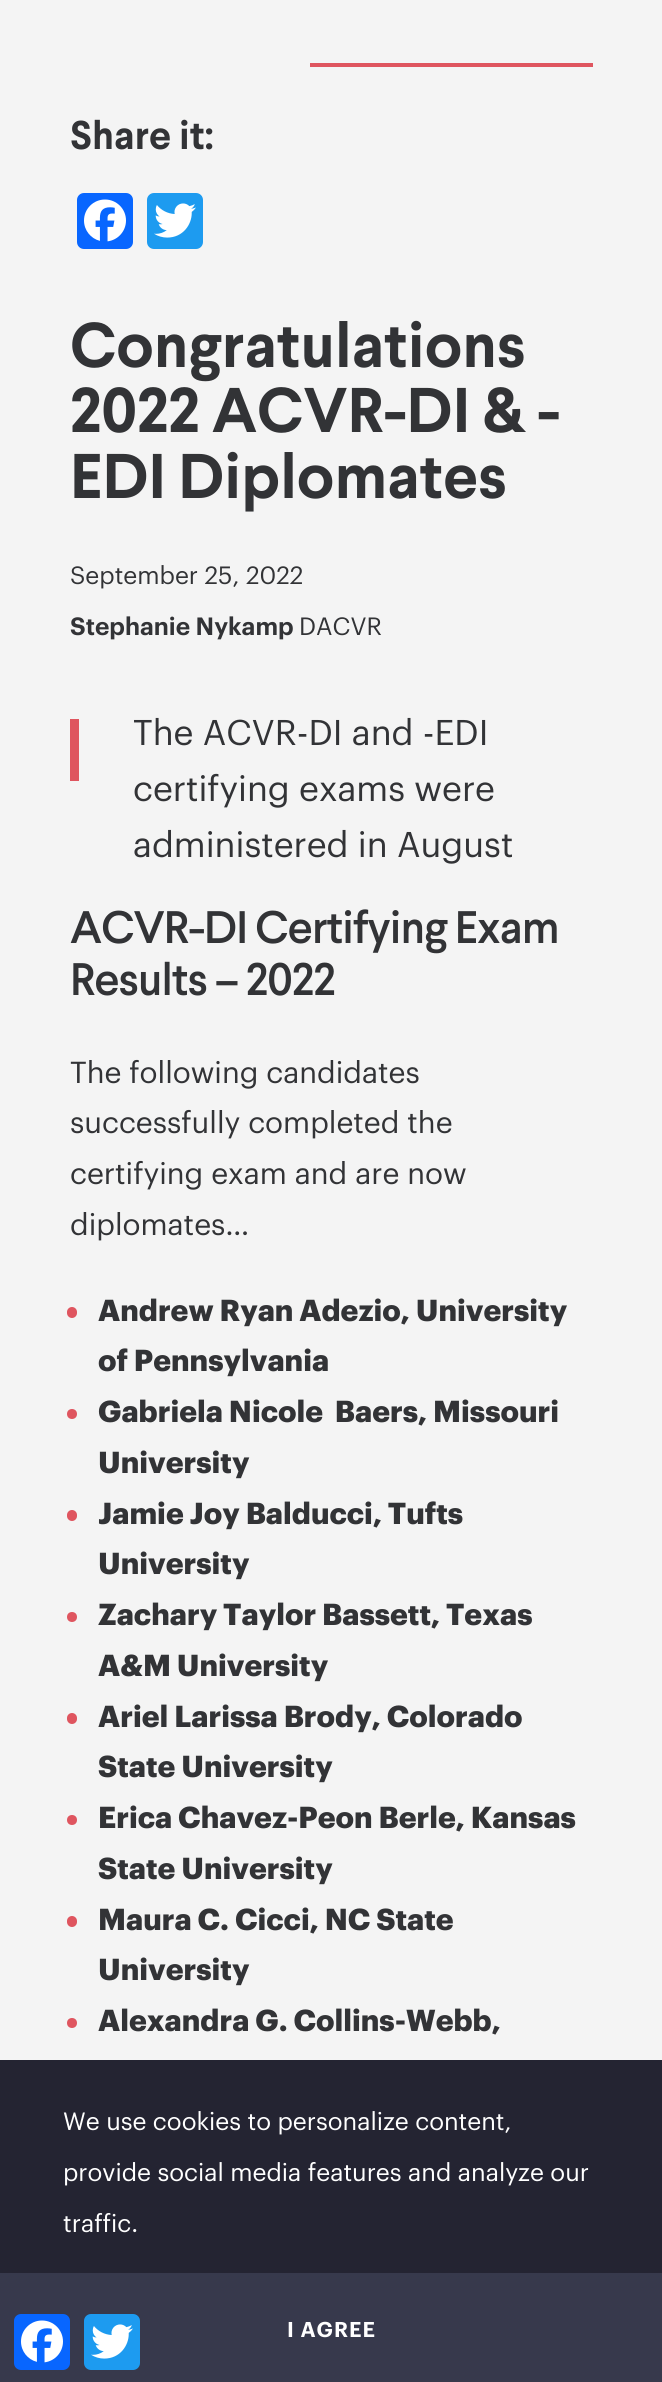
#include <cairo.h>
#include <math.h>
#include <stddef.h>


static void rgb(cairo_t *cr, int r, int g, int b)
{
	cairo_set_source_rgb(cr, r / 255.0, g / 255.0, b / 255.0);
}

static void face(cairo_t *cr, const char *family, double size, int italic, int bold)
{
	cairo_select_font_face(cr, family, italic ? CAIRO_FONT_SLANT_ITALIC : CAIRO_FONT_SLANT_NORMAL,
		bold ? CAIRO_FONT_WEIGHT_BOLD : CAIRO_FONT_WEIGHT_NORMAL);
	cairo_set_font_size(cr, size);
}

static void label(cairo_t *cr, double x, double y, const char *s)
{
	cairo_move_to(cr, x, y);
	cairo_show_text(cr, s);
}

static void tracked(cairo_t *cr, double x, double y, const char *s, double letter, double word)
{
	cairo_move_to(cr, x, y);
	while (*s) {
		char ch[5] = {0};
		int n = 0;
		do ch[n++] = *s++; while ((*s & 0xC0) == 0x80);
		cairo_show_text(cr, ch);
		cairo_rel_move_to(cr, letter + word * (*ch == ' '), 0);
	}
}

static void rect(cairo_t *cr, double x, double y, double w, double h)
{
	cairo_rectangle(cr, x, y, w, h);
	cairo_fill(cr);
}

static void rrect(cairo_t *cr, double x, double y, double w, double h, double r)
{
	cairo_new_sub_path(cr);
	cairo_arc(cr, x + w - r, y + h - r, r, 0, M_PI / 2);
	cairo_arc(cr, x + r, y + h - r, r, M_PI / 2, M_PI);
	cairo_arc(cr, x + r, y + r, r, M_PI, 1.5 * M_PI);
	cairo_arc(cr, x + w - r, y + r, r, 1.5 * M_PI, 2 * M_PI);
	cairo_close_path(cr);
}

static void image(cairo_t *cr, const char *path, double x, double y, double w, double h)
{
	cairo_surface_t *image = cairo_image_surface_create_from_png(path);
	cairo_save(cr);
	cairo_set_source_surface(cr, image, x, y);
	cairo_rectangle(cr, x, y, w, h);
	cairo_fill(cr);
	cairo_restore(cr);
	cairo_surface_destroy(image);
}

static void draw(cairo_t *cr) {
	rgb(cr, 244, 244, 244);
	cairo_paint(cr);
	rgb(cr, 223, 85, 95);
	rect(cr, 310, 63, 283, 4);
	face(cr, "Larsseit", 40, 0, 0);
	rgb(cr, 50, 51, 54);
	label(cr, 70, 149, "Share it:");
	rgb(cr, 8, 102, 255);
	rrect(cr, 77, 193, 56, 56, 7);
	cairo_fill(cr);
	image(cr, "image0.png", 84, 199, 42, 43);
	rgb(cr, 29, 155, 240);
	rrect(cr, 147, 193, 56, 56, 7);
	cairo_fill(cr);
	image(cr, "image1.png", 154, 203, 42, 35);
	face(cr, "Larsseit", 63, 0, 0);
	rgb(cr, 50, 51, 54);
	label(cr, 70, 367, "Congratulations");
	label(cr, 70, 432, "2022 ACVR-DI & -");
	label(cr, 70, 498, "EDI Diplomates");
	face(cr, "Graphik", 24.5, 0, 0);
	label(cr, 70, 584, "September 25, 2022");
	face(cr, "Graphik SemiBold", 24.5, 0, 0);
	label(cr, 70, 635, "Stephanie Nykamp");
	face(cr, "Graphik", 24.5, 0, 0);
	label(cr, 299, 635, "DACVR");
	rgb(cr, 223, 85, 95);
	rect(cr, 70, 719, 9, 62);
	face(cr, "Graphik", 35, 0, 0);
	rgb(cr, 50, 51, 54);
	label(cr, 133, 745, "The ACVR-DI and -EDI");
	label(cr, 133, 801, "certifying exams were");
	label(cr, 133, 857, "administered in August");
	face(cr, "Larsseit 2", 45.5, 0, 0);
	tracked(cr, 70, 943, "ACVR-DI Certifying Exam", -0.9, 0);
	tracked(cr, 70, 995, "Results – 2022", -0.9, 0);
	face(cr, "Graphik", 29.75, 0, 0);
	label(cr, 70, 1083, "The following candidates");
	label(cr, 70, 1133, "successfully completed the");
	label(cr, 70, 1184, "certifying exam and are now");
	label(cr, 70, 1235, "diplomates…");
	rgb(cr, 223, 85, 95);
	rrect(cr, 67, 1307, 10, 11, 5);
	cairo_fill(cr);
	face(cr, "Graphik", 29.75, 0, 1);
	rgb(cr, 50, 51, 54);
	label(cr, 98, 1321, "Andrew Ryan Adezio, University");
	label(cr, 98, 1371, "of Pennsylvania");
	rgb(cr, 223, 85, 95);
	cairo_new_path(cr);
	cairo_arc(cr, 72, 1414, 5, 0, 2 * M_PI);
	cairo_fill(cr);
	rgb(cr, 50, 51, 54);
	label(cr, 98, 1422, "Gabriela Nicole  Baers, Missouri");
	label(cr, 98, 1473, "University");
	rgb(cr, 223, 85, 95);
	rrect(cr, 67, 1510, 10, 11, 5);
	cairo_fill(cr);
	rgb(cr, 50, 51, 54);
	label(cr, 98, 1524, "Jamie Joy Balducci, Tufts");
	label(cr, 98, 1574, "University");
	rgb(cr, 223, 85, 95);
	cairo_new_path(cr);
	cairo_arc(cr, 72, 1617, 5, 0, 2 * M_PI);
	cairo_fill(cr);
	rgb(cr, 50, 51, 54);
	label(cr, 98, 1625, "Zachary Taylor Bassett, Texas");
	label(cr, 98, 1676, "A&M University");
	rgb(cr, 223, 85, 95);
	rrect(cr, 67, 1713, 10, 11, 5);
	cairo_fill(cr);
	rgb(cr, 50, 51, 54);
	label(cr, 98, 1727, "Ariel Larissa Brody, Colorado");
	label(cr, 98, 1777, "State University");
	rgb(cr, 223, 85, 95);
	cairo_new_path(cr);
	cairo_arc(cr, 72, 1820, 5, 0, 2 * M_PI);
	cairo_fill(cr);
	rgb(cr, 50, 51, 54);
	label(cr, 98, 1828, "Erica Chavez-Peon Berle, Kansas");
	label(cr, 98, 1879, "State University");
	rgb(cr, 223, 85, 95);
	rrect(cr, 67, 1916, 10, 11, 5);
	cairo_fill(cr);
	rgb(cr, 50, 51, 54);
	label(cr, 98, 1930, "Maura C. Cicci, NC State");
	label(cr, 98, 1980, "University");
	rgb(cr, 223, 85, 95);
	cairo_new_path(cr);
	cairo_arc(cr, 72, 2023, 5, 0, 2 * M_PI);
	cairo_fill(cr);
	rgb(cr, 50, 51, 54);
	label(cr, 98, 2031, "Alexandra G. Collins-Webb,");
	rgb(cr, 36, 36, 50);
	rect(cr, 0, 2060, 662, 213);
	face(cr, "Graphik", 24.5, 0, 0);
	rgb(cr, 255, 255, 255);
	label(cr, 63, 2130, "We use cookies to personalize content,");
	label(cr, 63, 2181, "provide social media features and analyze our");
	label(cr, 63, 2232, "traffic.");
	rgb(cr, 55, 57, 76);
	rect(cr, 0, 2273, 662, 109);
	face(cr, "Graphik SemiBold", 21, 0, 0);
	rgb(cr, 255, 255, 255);
	tracked(cr, 287, 2337, "I AGREE", 1, 0);
	rgb(cr, 8, 102, 255);
	rrect(cr, 14, 2314, 56, 56, 7);
	cairo_fill(cr);
	image(cr, "image0.png", 21, 2320, 42, 43);
	rgb(cr, 29, 155, 240);
	rrect(cr, 84, 2314, 56, 56, 7);
	cairo_fill(cr);
	image(cr, "image2.png", 91, 2324, 42, 35);
}

int main(void) {
	cairo_surface_t *surface = cairo_image_surface_create(CAIRO_FORMAT_RGB24, 662, 2382);
	cairo_t *cr = cairo_create(surface);
	cairo_font_options_t *options = cairo_font_options_create();
	cairo_font_options_set_hint_metrics(options, CAIRO_HINT_METRICS_OFF);
	cairo_font_options_set_hint_style(options, CAIRO_HINT_STYLE_NONE);
	cairo_set_font_options(cr, options);
	cairo_set_miter_limit(cr, 4);
	draw(cr);
	cairo_surface_write_to_png(surface, "render.png");
	cairo_font_options_destroy(options);
	cairo_destroy(cr);
	cairo_surface_destroy(surface);
	return 0;
}
